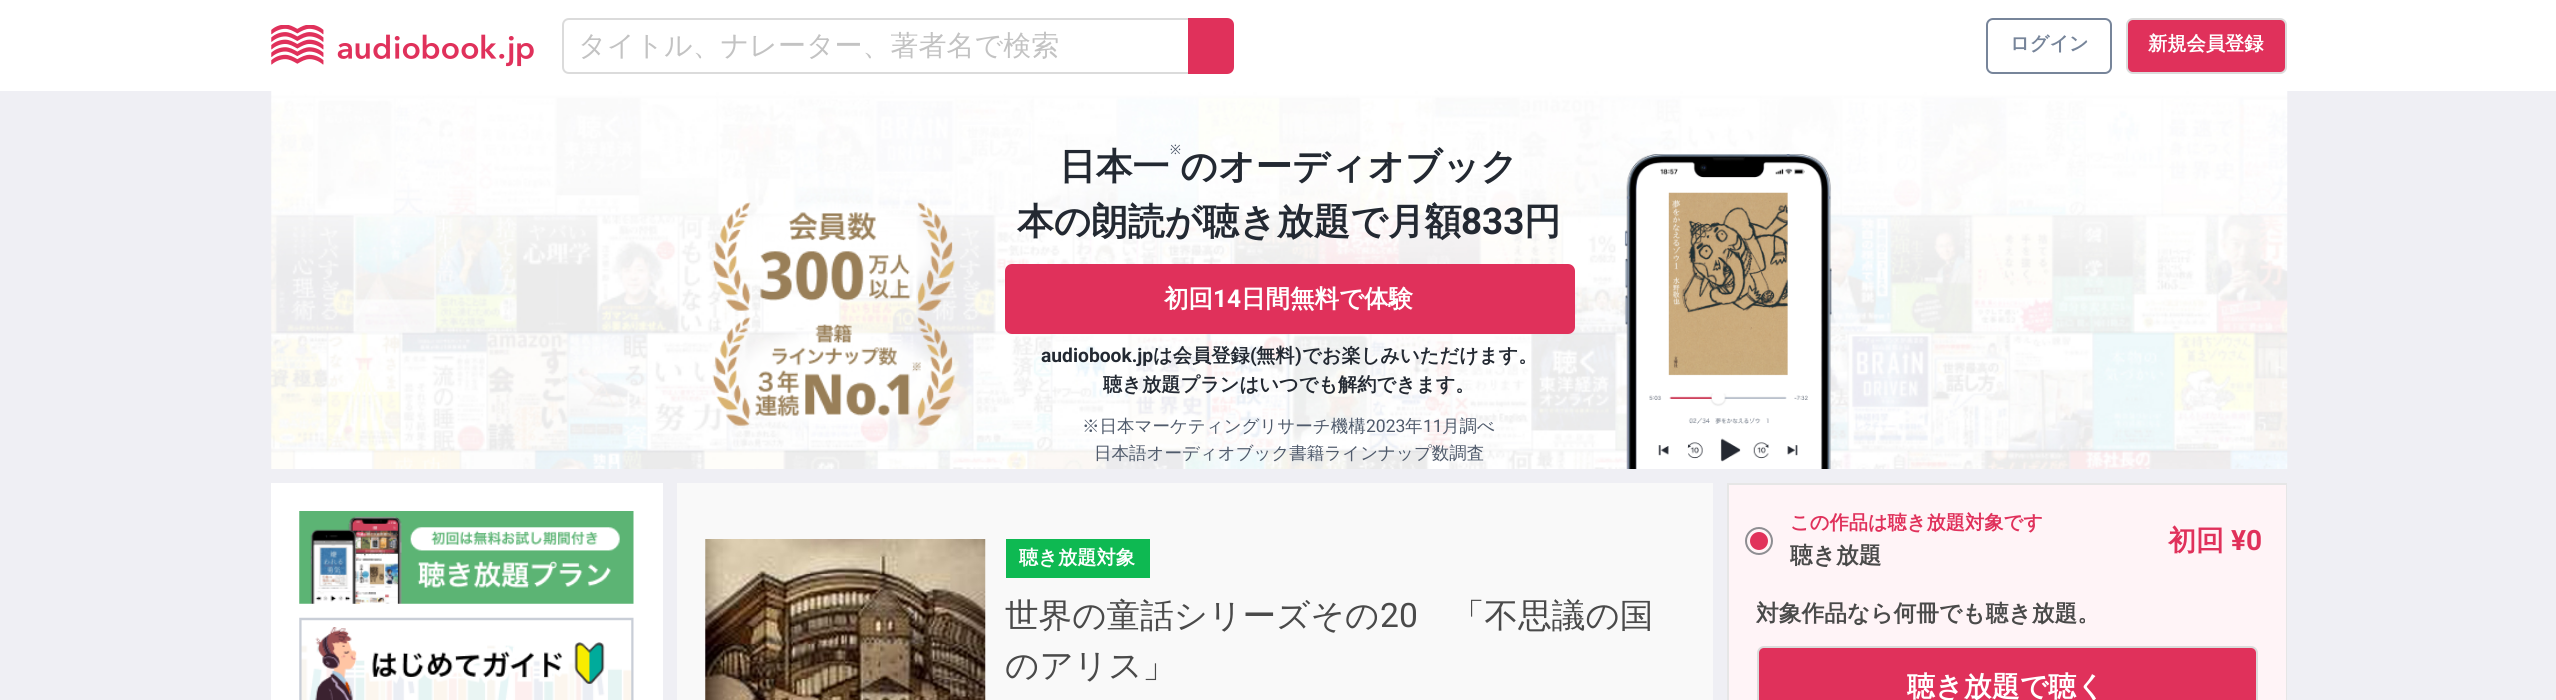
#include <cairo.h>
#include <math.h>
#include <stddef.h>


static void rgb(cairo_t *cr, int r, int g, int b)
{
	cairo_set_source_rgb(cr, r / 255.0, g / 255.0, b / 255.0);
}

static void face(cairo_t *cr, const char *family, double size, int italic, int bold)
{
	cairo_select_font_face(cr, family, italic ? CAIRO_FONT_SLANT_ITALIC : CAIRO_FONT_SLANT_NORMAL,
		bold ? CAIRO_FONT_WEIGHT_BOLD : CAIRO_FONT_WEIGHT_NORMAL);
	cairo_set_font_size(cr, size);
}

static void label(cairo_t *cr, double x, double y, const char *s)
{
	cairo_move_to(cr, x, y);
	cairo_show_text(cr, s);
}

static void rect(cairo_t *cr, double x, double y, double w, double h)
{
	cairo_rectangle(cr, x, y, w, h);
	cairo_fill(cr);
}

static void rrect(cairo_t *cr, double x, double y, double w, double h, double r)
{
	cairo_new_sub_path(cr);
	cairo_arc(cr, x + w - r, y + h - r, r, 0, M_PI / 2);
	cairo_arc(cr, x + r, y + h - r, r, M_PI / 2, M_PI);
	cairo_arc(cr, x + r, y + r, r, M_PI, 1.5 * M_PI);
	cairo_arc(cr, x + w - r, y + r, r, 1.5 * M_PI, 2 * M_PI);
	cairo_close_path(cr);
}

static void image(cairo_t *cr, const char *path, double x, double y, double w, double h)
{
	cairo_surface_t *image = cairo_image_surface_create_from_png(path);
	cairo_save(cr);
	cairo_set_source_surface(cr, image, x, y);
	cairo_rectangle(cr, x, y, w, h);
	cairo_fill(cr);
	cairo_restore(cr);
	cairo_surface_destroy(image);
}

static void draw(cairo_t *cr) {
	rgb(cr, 239, 239, 244);
	cairo_paint(cr);
	rgb(cr, 255, 255, 255);
	rect(cr, 0, 0, 2556, 91);
	image(cr, "image0.png", 271, 25, 263, 42);
	cairo_new_path(cr);
	cairo_move_to(cr, 569, 19);
	cairo_line_to(cr, 1189, 19);
	cairo_line_to(cr, 1189, 73);
	cairo_line_to(cr, 569, 73);
	cairo_curve_to(cr, 565.5, 73, 563, 70.5, 563, 67);
	cairo_line_to(cr, 563, 25);
	cairo_curve_to(cr, 563, 21.5, 565.5, 19, 569, 19);
	cairo_close_path(cr);
	rgb(cr, 219, 219, 219);
	cairo_stroke(cr);
	face(cr, "WenQuanYi Zen Hei Medium", 28, 0, 0);
	rgb(cr, 195, 195, 195);
	label(cr, 578, 55, "タイトル、ナレーター、著者名で検索");
	rgb(cr, 224, 49, 91);
	cairo_new_path(cr);
	cairo_move_to(cr, 1189, 19);
	cairo_line_to(cr, 1227, 19);
	cairo_curve_to(cr, 1230.5, 19, 1233, 21.5, 1233, 25);
	cairo_line_to(cr, 1233, 67);
	cairo_curve_to(cr, 1233, 70.5, 1230.5, 73, 1227, 73);
	cairo_line_to(cr, 1189, 73);
	cairo_close_path(cr);
	cairo_fill_preserve(cr);
	cairo_stroke(cr);
	rrect(cr, 1987, 19, 124, 54, 6);
	rgb(cr, 119, 133, 154);
	cairo_stroke(cr);
	face(cr, "WenQuanYi Zen Hei", 19.25, 0, 1);
	label(cr, 2010, 50, "ログイン");
	rgb(cr, 224, 49, 91);
	rrect(cr, 2127, 19, 159, 54, 6);
	cairo_fill_preserve(cr);
	rgb(cr, 219, 219, 219);
	cairo_stroke(cr);
	rgb(cr, 255, 255, 255);
	label(cr, 2148, 50, "新規会員登録");
	image(cr, "image1.png", 271, 91, 2017, 378);
	image(cr, "image2.png", 712, 202, 243, 224);
	face(cr, "WenQuanYi Zen Hei", 36.75, 0, 1);
	rgb(cr, 35, 41, 50);
	label(cr, 1059, 179, "日本一 のオーディオブック");
	face(cr, "Noto Sans", 13, 0, 0);
	rgb(cr, 79, 90, 107);
	label(cr, 1170, 154, "※");
	face(cr, "WenQuanYi Zen Hei", 36.75, 0, 1);
	rgb(cr, 35, 41, 50);
	label(cr, 1017, 234, "本の朗読が聴き放題で月額");
	face(cr, "Roboto", 36.75, 0, 1);
	label(cr, 1461, 234, "833");
	face(cr, "WenQuanYi Zen Hei", 36.75, 0, 1);
	label(cr, 1524, 234, "円");
	rgb(cr, 224, 49, 91);
	rrect(cr, 1006, 265, 568, 68, 6);
	cairo_fill_preserve(cr);
	cairo_stroke(cr);
	face(cr, "WenQuanYi Zen Hei", 24.5, 0, 1);
	rgb(cr, 255, 255, 255);
	label(cr, 1164, 307, "初回");
	face(cr, "Roboto", 24.5, 0, 1);
	label(cr, 1213, 307, "14");
	face(cr, "WenQuanYi Zen Hei", 24.5, 0, 1);
	label(cr, 1241, 307, "日間無料で体験");
	face(cr, "Roboto", 19.25, 0, 1);
	rgb(cr, 35, 41, 50);
	label(cr, 1041, 362, "audiobook.jp");
	face(cr, "WenQuanYi Zen Hei", 19.25, 0, 1);
	label(cr, 1153, 362, "は会員登録");
	face(cr, "Roboto", 19.25, 0, 1);
	label(cr, 1250, 362, "(");
	face(cr, "WenQuanYi Zen Hei", 19.25, 0, 1);
	label(cr, 1256, 362, "無料");
	face(cr, "Roboto", 19.25, 0, 1);
	label(cr, 1295, 362, ")");
	face(cr, "WenQuanYi Zen Hei", 19.25, 0, 1);
	label(cr, 1302, 362, "でお楽しみいただけます。");
	label(cr, 1103, 391, "聴き放題プランはいつでも解約できます。");
	face(cr, "WenQuanYi Zen Hei Medium", 17.5, 0, 0);
	rgb(cr, 79, 90, 107);
	label(cr, 1082, 432, "※日本マーケティングリサーチ機構");
	face(cr, "Roboto", 17.5, 0, 0);
	label(cr, 1366, 432, "2023");
	face(cr, "WenQuanYi Zen Hei Medium", 17.5, 0, 0);
	label(cr, 1405, 432, "年");
	face(cr, "Roboto", 17.5, 0, 0);
	label(cr, 1423, 432, "11");
	face(cr, "WenQuanYi Zen Hei Medium", 17.5, 0, 0);
	label(cr, 1442, 432, "月調べ");
	label(cr, 1094, 459, "日本語オーディオブック書籍ラインナップ数調査");
	image(cr, "image3.png", 1624, 154, 208, 315);
	rgb(cr, 255, 255, 255);
	rect(cr, 271, 483, 392, 217);
	image(cr, "image4.png", 299, 511, 335, 93);
	image(cr, "image5.png", 299, 617, 335, 83);
	rgb(cr, 249, 249, 249);
	rect(cr, 677, 483, 1036, 217);
	image(cr, "image6.png", 705, 539, 281, 161);
	rgb(cr, 14, 185, 82);
	rect(cr, 1006, 539, 144, 39);
	face(cr, "WenQuanYi Zen Hei", 19.25, 0, 1);
	rgb(cr, 255, 255, 255);
	label(cr, 1019, 564, "聴き放題対象");
	face(cr, "WenQuanYi Zen Hei Medium", 33.6, 0, 0);
	rgb(cr, 74, 74, 74);
	label(cr, 1005, 627, "世界の童話シリーズその");
	face(cr, "Roboto", 33.6, 0, 0);
	label(cr, 1380, 627, "20");
	face(cr, "WenQuanYi Zen Hei Medium", 33.6, 0, 0);
	label(cr, 1451, 627, "「不思議の国");
	label(cr, 1005, 677, "のアリス」");
	cairo_rectangle(cr, 1728, 484, 558, 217);
	rgb(cr, 230, 230, 230);
	cairo_stroke(cr);
	rgb(cr, 255, 244, 247);
	rect(cr, 1729, 485, 557, 215);
	cairo_arc(cr, 1759, 541, 13, 0, 2 * M_PI);
	rgb(cr, 142, 142, 146);
	cairo_stroke(cr);
	rgb(cr, 225, 50, 91);
	cairo_arc(cr, 1759, 541, 9, 0, 2 * M_PI);
	cairo_fill(cr);
	face(cr, "WenQuanYi Zen Hei", 19.25, 0, 1);
	rgb(cr, 224, 49, 91);
	label(cr, 1790, 529, "この作品は聴き放題対象です");
	face(cr, "WenQuanYi Zen Hei", 22.75, 0, 1);
	rgb(cr, 74, 74, 74);
	label(cr, 1790, 563, "聴き放題");
	face(cr, "WenQuanYi Zen Hei", 28, 0, 1);
	rgb(cr, 224, 49, 91);
	label(cr, 2168, 550, "初回");
	face(cr, "Roboto", 28, 0, 1);
	label(cr, 2231, 550, "¥0");
	face(cr, "WenQuanYi Zen Hei", 22.75, 0, 1);
	rgb(cr, 74, 74, 74);
	label(cr, 1756, 621, "対象作品なら何冊でも聴き放題。");
	rgb(cr, 224, 49, 91);
	rrect(cr, 1758, 647, 499, 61, 6);
	cairo_fill_preserve(cr);
	rgb(cr, 219, 219, 219);
	cairo_stroke(cr);
	face(cr, "WenQuanYi Zen Hei", 28, 0, 1);
	rgb(cr, 255, 255, 255);
	label(cr, 1907, 696, "聴き放題で聴く");
}

int main(void) {
	cairo_surface_t *surface = cairo_image_surface_create(CAIRO_FORMAT_RGB24, 2556, 700);
	cairo_t *cr = cairo_create(surface);
	cairo_font_options_t *options = cairo_font_options_create();
	cairo_font_options_set_hint_metrics(options, CAIRO_HINT_METRICS_OFF);
	cairo_font_options_set_hint_style(options, CAIRO_HINT_STYLE_NONE);
	cairo_set_font_options(cr, options);
	cairo_set_miter_limit(cr, 4);
	draw(cr);
	cairo_surface_write_to_png(surface, "render.png");
	cairo_font_options_destroy(options);
	cairo_destroy(cr);
	cairo_surface_destroy(surface);
	return 0;
}
